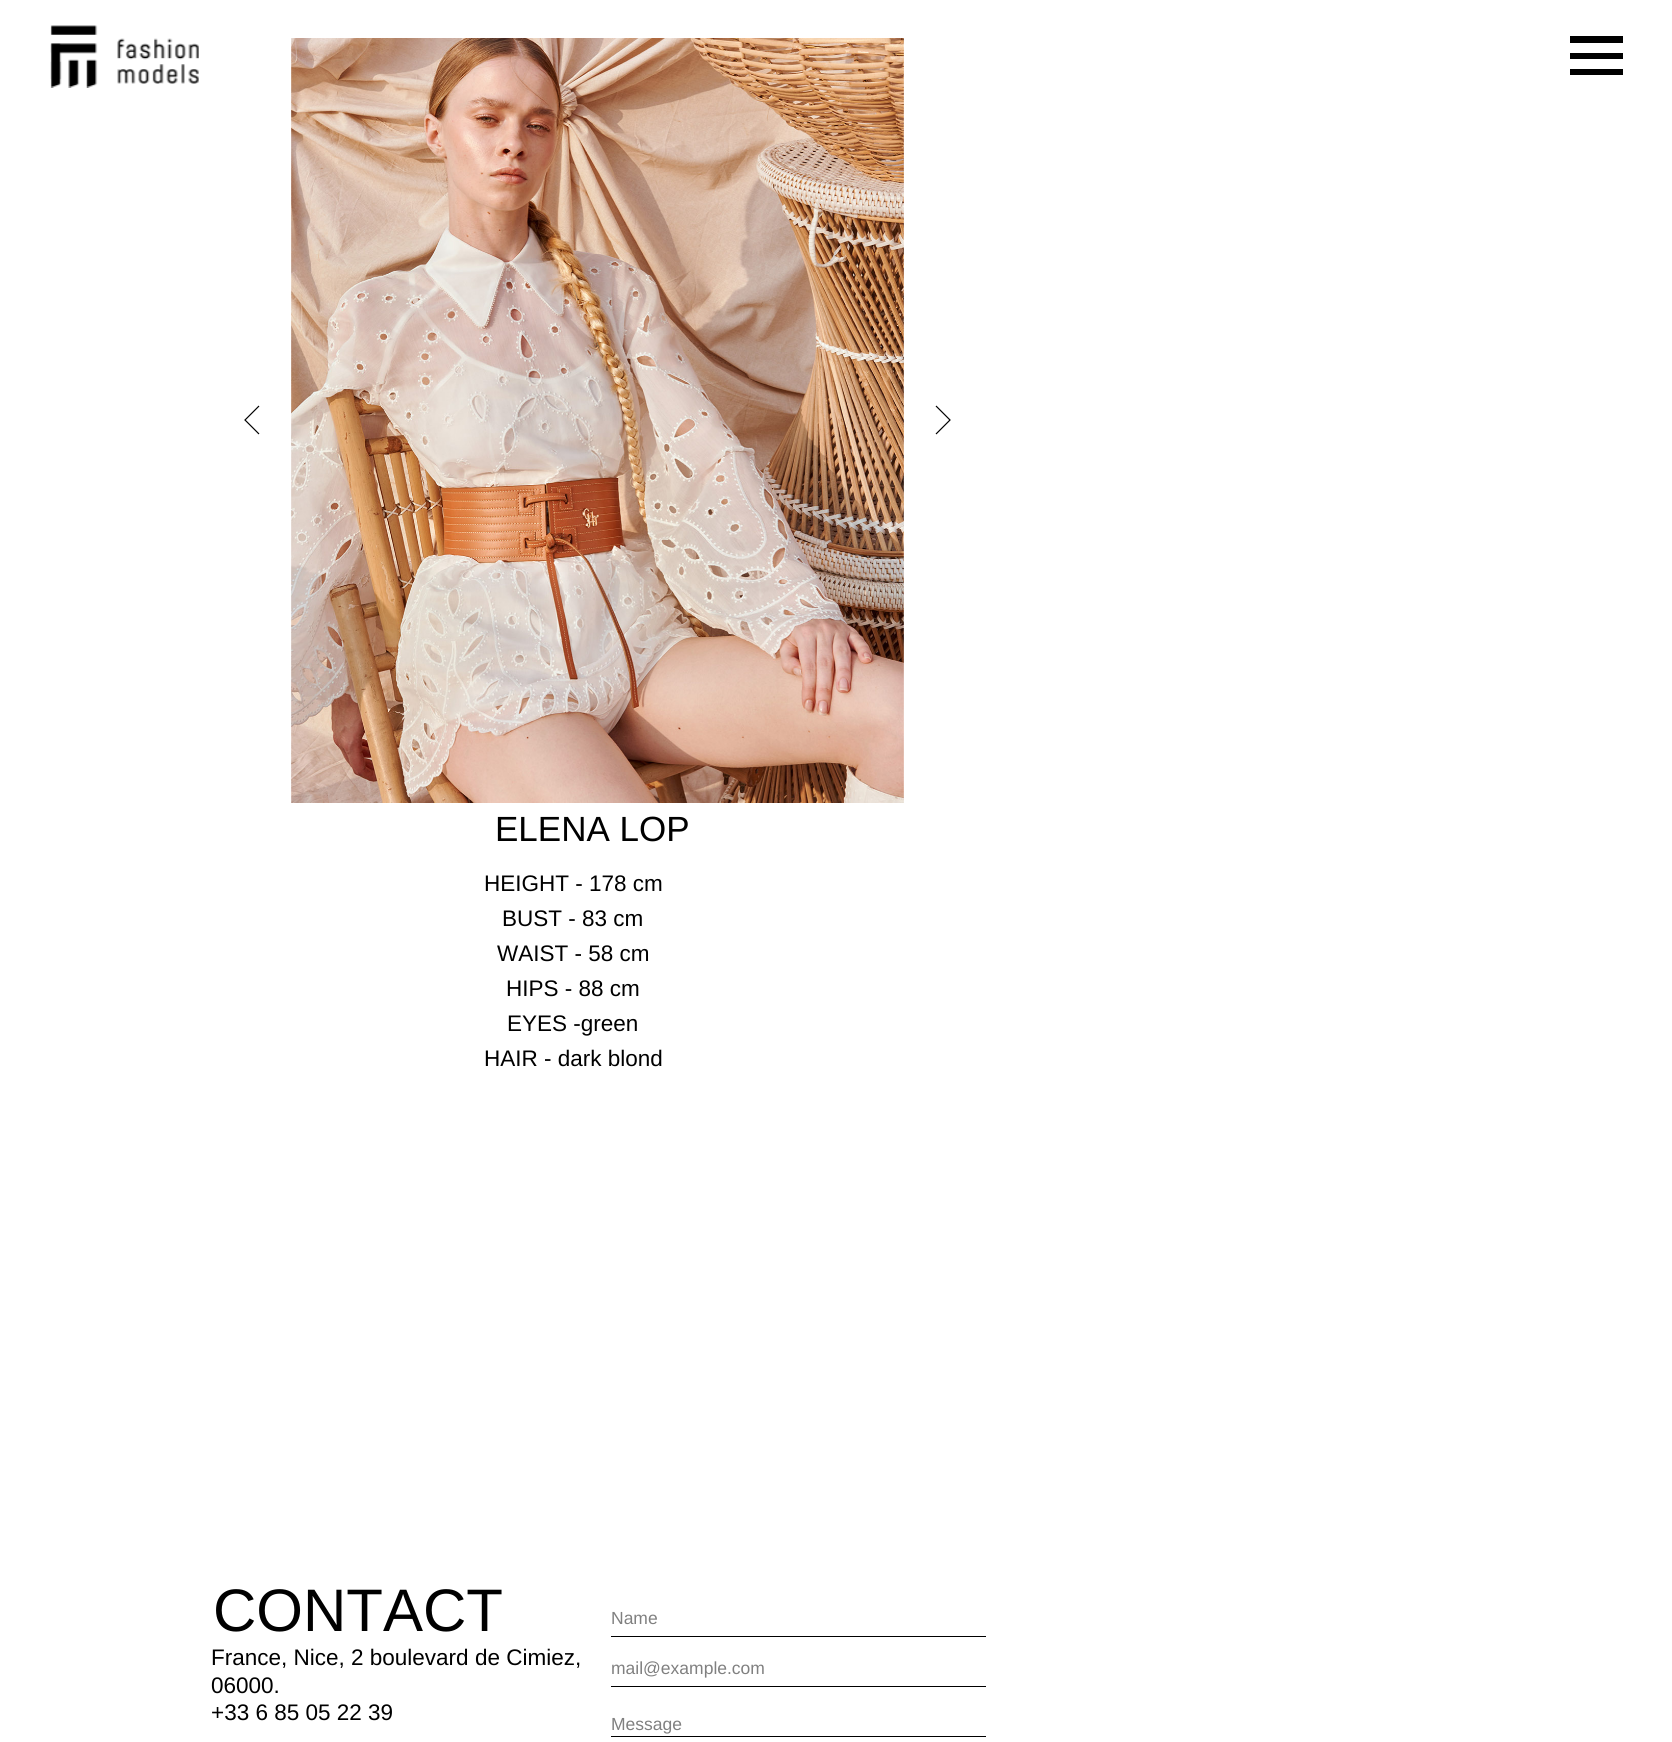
#include <cairo.h>
#include <math.h>
#include <stddef.h>


static void rgb(cairo_t *cr, int r, int g, int b)
{
	cairo_set_source_rgb(cr, r / 255.0, g / 255.0, b / 255.0);
}

static void face(cairo_t *cr, const char *family, double size, int italic, int bold)
{
	cairo_select_font_face(cr, family, italic ? CAIRO_FONT_SLANT_ITALIC : CAIRO_FONT_SLANT_NORMAL,
		bold ? CAIRO_FONT_WEIGHT_BOLD : CAIRO_FONT_WEIGHT_NORMAL);
	cairo_set_font_size(cr, size);
}

static void label(cairo_t *cr, double x, double y, const char *s)
{
	cairo_move_to(cr, x, y);
	cairo_show_text(cr, s);
}

static void rect(cairo_t *cr, double x, double y, double w, double h)
{
	cairo_rectangle(cr, x, y, w, h);
	cairo_fill(cr);
}

static void image(cairo_t *cr, const char *path, double x, double y, double w, double h)
{
	cairo_surface_t *image = cairo_image_surface_create_from_png(path);
	cairo_save(cr);
	cairo_set_source_surface(cr, image, x, y);
	cairo_rectangle(cr, x, y, w, h);
	cairo_fill(cr);
	cairo_restore(cr);
	cairo_surface_destroy(image);
}

static void draw(cairo_t *cr) {
	rgb(cr, 255, 255, 255);
	cairo_paint(cr);
	image(cr, "image0.png", 50, 25, 149, 63);
	rgb(cr, 0, 0, 0);
	rect(cr, 1570, 36, 53, 7);
	rect(cr, 1570, 53, 53, 6);
	rect(cr, 1570, 69, 53, 6);
	image(cr, "image1.png", 291, 38, 613, 765);
	cairo_new_path(cr);
	cairo_move_to(cr, 259, 406);
	cairo_line_to(cr, 245, 420);
	cairo_line_to(cr, 259, 434);
	cairo_set_line_width(cr, 1.2);
	cairo_stroke(cr);
	cairo_new_path(cr);
	cairo_move_to(cr, 936, 434);
	cairo_line_to(cr, 950, 420);
	cairo_line_to(cr, 936, 406);
	cairo_stroke(cr);
	face(cr, "Liberation Sans", 35, 0, 0);
	label(cr, 495, 841, "ELENA LOP");
	face(cr, "Liberation Sans", 22.5, 0, 0);
	label(cr, 484, 891, "HEIGHT - 178 cm");
	label(cr, 502, 926, "BUST - 83 cm");
	label(cr, 497, 961, "WAIST - 58 cm");
	label(cr, 506, 996, "HIPS - 88 cm");
	label(cr, 507, 1031, "EYES -green");
	label(cr, 484, 1066, "HAIR - dark blond");
	face(cr, "Liberation Sans", 60, 0, 0);
	label(cr, 213, 1631, "CONTACT");
	rect(cr, 611, 1636, 375, 1);
	face(cr, "Liberation Sans", 17.5, 0, 0);
	rgb(cr, 128, 128, 128);
	label(cr, 611, 1624, "Name");
	rgb(cr, 0, 0, 0);
	rect(cr, 611, 1686, 375, 1);
	rgb(cr, 128, 128, 128);
	label(cr, 611, 1674, "mail@example.com");
	rgb(cr, 0, 0, 0);
	rect(cr, 611, 1736, 375, 1);
	rgb(cr, 128, 128, 128);
	label(cr, 611, 1730, "Message");
	face(cr, "Liberation Sans", 22.5, 0, 0);
	rgb(cr, 0, 0, 0);
	label(cr, 211, 1665, "France, Nice, 2 boulevard de Cimiez,");
	label(cr, 211, 1693, "06000.");
	label(cr, 211, 1720, "+33 6 85 05 22 39");
}

int main(void) {
	cairo_surface_t *surface = cairo_image_surface_create(CAIRO_FORMAT_RGB24, 1672, 1742);
	cairo_t *cr = cairo_create(surface);
	cairo_font_options_t *options = cairo_font_options_create();
	cairo_font_options_set_hint_metrics(options, CAIRO_HINT_METRICS_OFF);
	cairo_font_options_set_hint_style(options, CAIRO_HINT_STYLE_NONE);
	cairo_set_font_options(cr, options);
	cairo_set_miter_limit(cr, 4);
	draw(cr);
	cairo_surface_write_to_png(surface, "render.png");
	cairo_font_options_destroy(options);
	cairo_destroy(cr);
	cairo_surface_destroy(surface);
	return 0;
}
